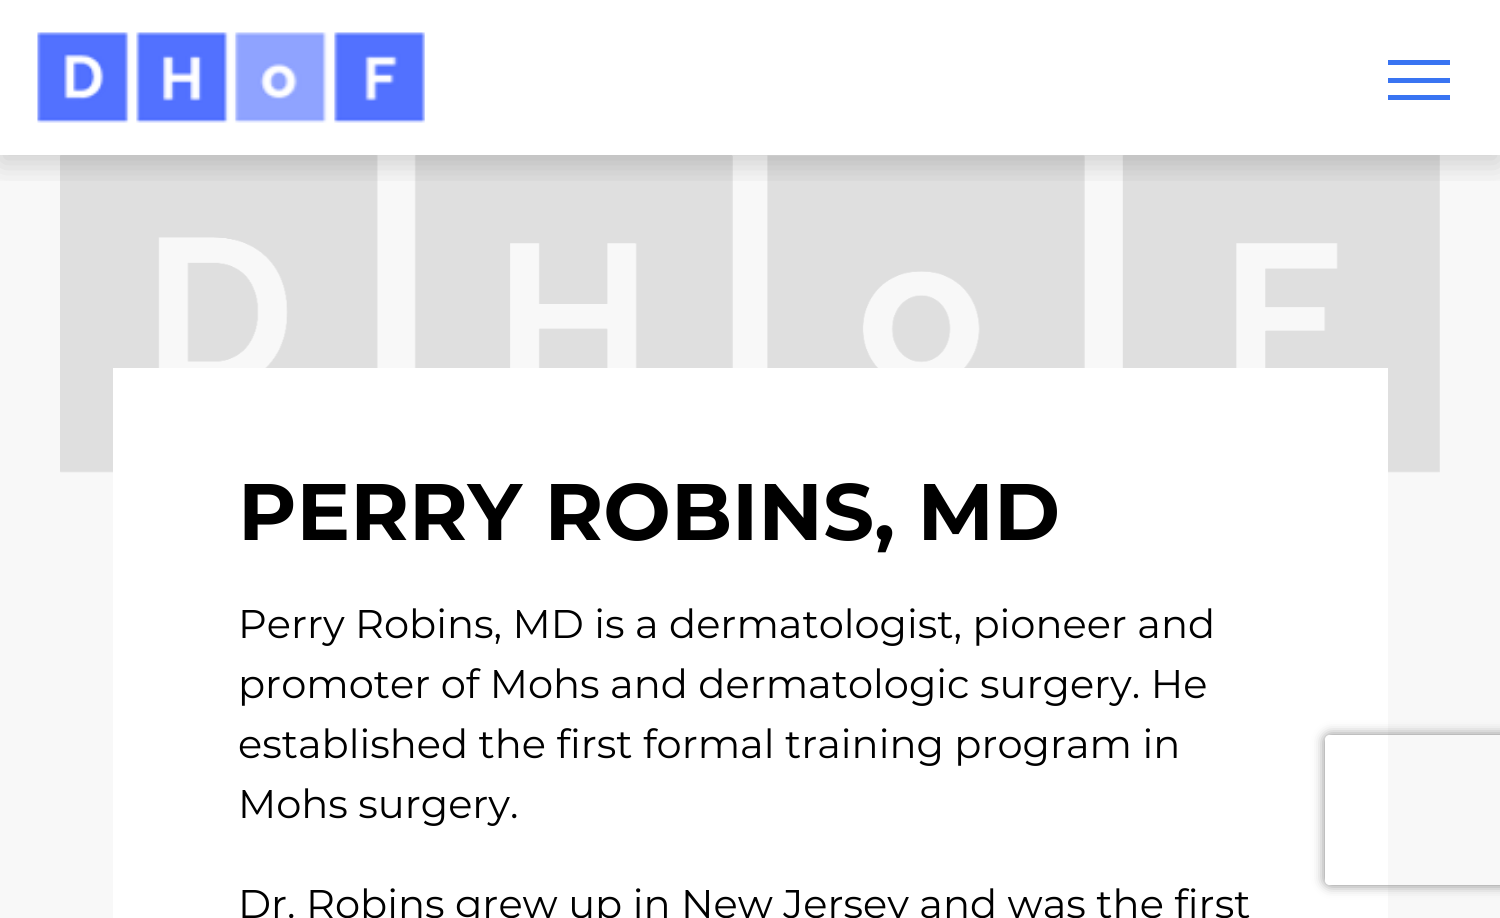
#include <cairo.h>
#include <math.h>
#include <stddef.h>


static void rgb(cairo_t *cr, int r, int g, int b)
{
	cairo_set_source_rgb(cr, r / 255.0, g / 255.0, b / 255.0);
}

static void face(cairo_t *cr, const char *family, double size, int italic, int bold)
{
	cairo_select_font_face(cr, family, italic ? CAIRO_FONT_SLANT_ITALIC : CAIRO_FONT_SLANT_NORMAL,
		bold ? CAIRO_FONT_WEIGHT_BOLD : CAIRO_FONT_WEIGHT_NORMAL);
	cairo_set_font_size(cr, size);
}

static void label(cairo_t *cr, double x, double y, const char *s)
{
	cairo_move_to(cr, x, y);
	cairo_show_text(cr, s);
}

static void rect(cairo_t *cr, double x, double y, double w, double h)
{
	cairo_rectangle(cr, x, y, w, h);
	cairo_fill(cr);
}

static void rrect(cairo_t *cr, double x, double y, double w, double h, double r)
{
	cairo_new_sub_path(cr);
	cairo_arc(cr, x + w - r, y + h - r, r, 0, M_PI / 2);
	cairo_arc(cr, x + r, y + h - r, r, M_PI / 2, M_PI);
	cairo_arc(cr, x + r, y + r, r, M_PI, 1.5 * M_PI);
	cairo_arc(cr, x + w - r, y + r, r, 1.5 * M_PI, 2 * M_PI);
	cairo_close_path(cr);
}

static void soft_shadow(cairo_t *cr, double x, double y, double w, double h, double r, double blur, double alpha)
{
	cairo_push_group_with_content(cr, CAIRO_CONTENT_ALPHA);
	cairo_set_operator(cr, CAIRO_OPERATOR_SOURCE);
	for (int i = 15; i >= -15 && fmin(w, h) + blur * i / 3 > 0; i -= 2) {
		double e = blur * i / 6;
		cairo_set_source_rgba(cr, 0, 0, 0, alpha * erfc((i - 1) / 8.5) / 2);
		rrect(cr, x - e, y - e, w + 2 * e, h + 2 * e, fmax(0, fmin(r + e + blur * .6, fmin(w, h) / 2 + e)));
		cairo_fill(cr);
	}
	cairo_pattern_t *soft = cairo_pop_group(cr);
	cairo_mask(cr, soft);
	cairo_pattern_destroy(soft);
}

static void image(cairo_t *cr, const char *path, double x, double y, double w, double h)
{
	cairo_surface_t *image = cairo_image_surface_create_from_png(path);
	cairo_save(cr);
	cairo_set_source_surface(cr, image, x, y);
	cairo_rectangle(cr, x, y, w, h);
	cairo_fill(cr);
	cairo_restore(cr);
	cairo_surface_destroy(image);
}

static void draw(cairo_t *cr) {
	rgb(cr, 255, 255, 255);
	cairo_paint(cr);
	rgb(cr, 248, 248, 248);
	rect(cr, 0, 155, 1500, 763);
	image(cr, "image1.png", 60, 155, 1380, 318);
	cairo_save(cr);
	cairo_rectangle(cr, 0, 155, 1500, 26);
	cairo_clip(cr);
	rgb(cr, 0, 0, 0);
	soft_shadow(cr, 0, 8, 1500, 155, 0, 15, 0.18);
	cairo_restore(cr);
	image(cr, "image0.png", 37, 32, 388, 91);
	rgb(cr, 57, 116, 242);
	rect(cr, 1388, 60, 62, 5);
	rect(cr, 1388, 78, 62, 5);
	rect(cr, 1388, 95, 62, 5);
	rgb(cr, 255, 255, 255);
	rect(cr, 113, 368, 1275, 550);
	face(cr, "Montserrat", 80, 0, 1);
	rgb(cr, 0, 0, 0);
	label(cr, 238, 540, "PERRY ROBINS, MD");
	face(cr, "Montserrat", 40, 0, 0);
	label(cr, 238, 638, "Perry Robins, MD is a dermatologist, pioneer and");
	label(cr, 238, 698, "promoter of Mohs and dermatologic surgery. He");
	label(cr, 238, 758, "established the first formal training program in");
	label(cr, 238, 818, "Mohs surgery.");
	label(cr, 238, 918, "Dr. Robins grew up in New Jersey and was the first");
	cairo_save(cr);
	cairo_set_fill_rule(cr, CAIRO_FILL_RULE_EVEN_ODD);
	cairo_new_path(cr);
	cairo_move_to(cr, 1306, 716);
	cairo_line_to(cr, 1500, 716);
	cairo_line_to(cr, 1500, 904);
	cairo_line_to(cr, 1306, 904);
	cairo_close_path(cr);
	cairo_move_to(cr, 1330, 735);
	cairo_line_to(cr, 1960, 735);
	cairo_curve_to(cr, 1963, 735, 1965, 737, 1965, 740);
	cairo_line_to(cr, 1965, 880);
	cairo_curve_to(cr, 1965, 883, 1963, 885, 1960, 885);
	cairo_line_to(cr, 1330, 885);
	cairo_curve_to(cr, 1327, 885, 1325, 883, 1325, 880);
	cairo_line_to(cr, 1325, 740);
	cairo_curve_to(cr, 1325, 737, 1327, 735, 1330, 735);
	cairo_close_path(cr);
	cairo_clip(cr);
	rgb(cr, 128, 128, 128);
	soft_shadow(cr, 1325, 735, 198, 150, 5, 6, 1);
	cairo_restore(cr);
}

int main(void) {
	cairo_surface_t *surface = cairo_image_surface_create(CAIRO_FORMAT_RGB24, 1500, 918);
	cairo_t *cr = cairo_create(surface);
	cairo_font_options_t *options = cairo_font_options_create();
	cairo_font_options_set_hint_metrics(options, CAIRO_HINT_METRICS_OFF);
	cairo_font_options_set_hint_style(options, CAIRO_HINT_STYLE_NONE);
	cairo_set_font_options(cr, options);
	cairo_set_miter_limit(cr, 4);
	draw(cr);
	cairo_surface_write_to_png(surface, "render.png");
	cairo_font_options_destroy(options);
	cairo_destroy(cr);
	cairo_surface_destroy(surface);
	return 0;
}
